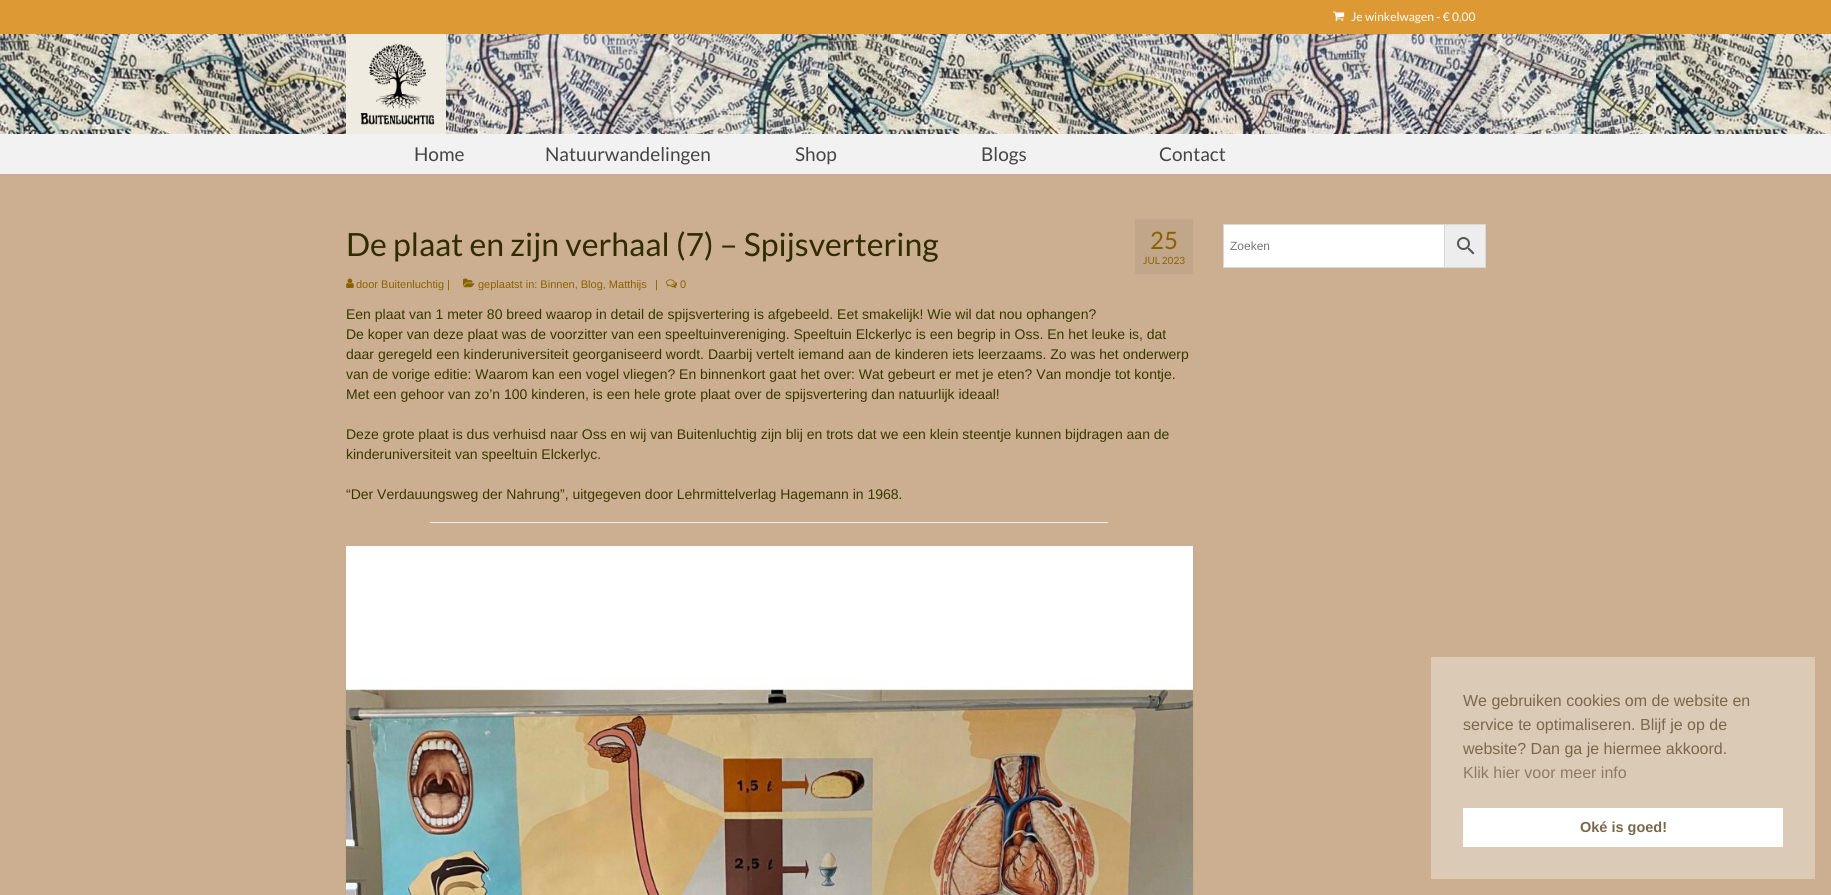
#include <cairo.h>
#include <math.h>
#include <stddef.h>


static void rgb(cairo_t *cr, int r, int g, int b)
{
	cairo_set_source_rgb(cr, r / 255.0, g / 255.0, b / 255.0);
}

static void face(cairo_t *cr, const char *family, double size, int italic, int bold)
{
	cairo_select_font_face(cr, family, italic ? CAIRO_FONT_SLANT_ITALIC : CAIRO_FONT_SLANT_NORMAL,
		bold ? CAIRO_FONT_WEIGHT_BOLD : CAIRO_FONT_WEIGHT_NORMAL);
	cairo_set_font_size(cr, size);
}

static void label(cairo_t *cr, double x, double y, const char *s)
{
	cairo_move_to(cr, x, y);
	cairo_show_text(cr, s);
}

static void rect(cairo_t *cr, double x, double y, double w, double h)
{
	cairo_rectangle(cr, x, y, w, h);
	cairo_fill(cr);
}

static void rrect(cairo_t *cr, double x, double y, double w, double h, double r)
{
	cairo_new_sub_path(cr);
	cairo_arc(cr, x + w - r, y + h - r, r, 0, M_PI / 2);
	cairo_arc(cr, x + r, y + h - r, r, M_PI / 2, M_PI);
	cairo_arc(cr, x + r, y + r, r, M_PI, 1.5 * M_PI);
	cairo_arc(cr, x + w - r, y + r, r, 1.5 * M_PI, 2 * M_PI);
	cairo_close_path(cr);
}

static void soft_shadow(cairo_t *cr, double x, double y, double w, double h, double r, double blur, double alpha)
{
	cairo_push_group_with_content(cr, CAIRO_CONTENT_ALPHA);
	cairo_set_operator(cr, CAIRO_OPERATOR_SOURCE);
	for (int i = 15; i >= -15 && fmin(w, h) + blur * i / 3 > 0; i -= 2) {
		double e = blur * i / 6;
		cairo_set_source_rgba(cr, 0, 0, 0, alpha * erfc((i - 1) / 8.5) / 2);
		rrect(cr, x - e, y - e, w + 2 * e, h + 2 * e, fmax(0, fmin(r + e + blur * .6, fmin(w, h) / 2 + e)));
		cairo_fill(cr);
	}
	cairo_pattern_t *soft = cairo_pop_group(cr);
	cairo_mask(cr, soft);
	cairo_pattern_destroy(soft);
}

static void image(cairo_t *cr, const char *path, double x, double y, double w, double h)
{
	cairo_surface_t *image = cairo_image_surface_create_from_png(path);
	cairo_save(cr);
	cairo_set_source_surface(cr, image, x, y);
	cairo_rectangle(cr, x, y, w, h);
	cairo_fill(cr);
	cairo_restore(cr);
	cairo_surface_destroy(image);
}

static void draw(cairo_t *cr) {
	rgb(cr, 255, 255, 255);
	cairo_paint(cr);
	image(cr, "image0.png", 0, 34, 1831, 100);
	rgb(cr, 221, 153, 51);
	rect(cr, 0, 0, 1831, 34);
	image(cr, "image1.png", 1333, 11, 12, 10);
	face(cr, "Lato", 12, 0, 0);
	rgb(cr, 255, 255, 255);
	label(cr, 1351, 21, "Je winkelwagen - € 0,00");
	image(cr, "image2.png", 346, 34, 100, 100);
	rgb(cr, 242, 242, 242);
	rect(cr, 0, 134, 1831, 40);
	face(cr, "Lato", 19, 0, 0);
	rgb(cr, 68, 68, 68);
	label(cr, 414, 161, "Home");
	label(cr, 545, 161, "Natuurwandelingen");
	label(cr, 795, 161, "Shop");
	label(cr, 981, 161, "Blogs");
	label(cr, 1159, 161, "Contact");
	rgb(cr, 204, 175, 144);
	rect(cr, 0, 174, 1831, 721);
	face(cr, "Lato", 32, 0, 0);
	rgb(cr, 48, 43, 0);
	label(cr, 346, 256, "De plaat en zijn verhaal (7) – Spijsvertering");
	image(cr, "image3.png", 346, 278, 8, 10);
	face(cr, "Liberation Sans", 11, 0, 0);
	rgb(cr, 137, 98, 0);
	label(cr, 356, 288, "door Buitenluchtig |");
	image(cr, "image4.png", 463, 278, 12, 10);
	label(cr, 478, 288, "geplaatst in: Binnen, Blog, Matthijs");
	label(cr, 655, 288, "|");
	image(cr, "image5.png", 666, 279, 11, 9);
	label(cr, 680, 288, "0");
	rgb(cr, 194, 166, 137);
	rect(cr, 1135, 219, 58, 55);
	face(cr, "Lato", 24, 0, 0);
	rgb(cr, 137, 98, 0);
	label(cr, 1150, 249, "25");
	face(cr, "Lato", 10, 0, 0);
	label(cr, 1143, 264, "JUL 2023");
	face(cr, "Liberation Sans", 14, 0, 0);
	rgb(cr, 56, 55, 0);
	label(cr, 346, 319, "Een plaat van 1 meter 80 breed waarop in detail de spijsvertering is afgebeeld. Eet smakelijk! Wie wil dat nou ophangen?");
	label(cr, 346, 339, "De koper van deze plaat was de voorzitter van een speeltuinvereniging. Speeltuin Elckerlyc is een begrip in Oss. En het leuke is, dat");
	label(cr, 346, 359, "daar geregeld een kinderuniversiteit georganiseerd wordt. Daarbij vertelt iemand aan de kinderen iets leerzaams. Zo was het onderwerp");
	label(cr, 346, 379, "van de vorige editie: Waarom kan een vogel vliegen? En binnenkort gaat het over: Wat gebeurt er met je eten? Van mondje tot kontje.");
	label(cr, 346, 399, "Met een gehoor van zo’n 100 kinderen, is een hele grote plaat over de spijsvertering dan natuurlijk ideaal!");
	label(cr, 346, 439, "Deze grote plaat is dus verhuisd naar Oss en wij van Buitenluchtig zijn blij en trots dat we een klein steentje kunnen bijdragen aan de");
	label(cr, 346, 459, "kinderuniversiteit van speeltuin Elckerlyc.");
	label(cr, 346, 499, "“Der Verdauungsweg der Nahrung”, uitgegeven door Lehrmittelverlag Hagemann in 1968.");
	rgb(cr, 238, 238, 238);
	rect(cr, 430, 522, 678, 1);
	rgb(cr, 0, 0, 0);
	soft_shadow(cr, 346, 547, 847, 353, 0, 1.5, 0.06);
	image(cr, "image6.png", 346, 546, 847, 349);
	rgb(cr, 237, 237, 237);
	cairo_rectangle(cr, 1444.5, 224.5, 41, 43);
	cairo_fill_preserve(cr);
	rgb(cr, 216, 216, 216);
	cairo_set_line_width(cr, 1);
	cairo_stroke(cr);
	rgb(cr, 255, 255, 255);
	cairo_rectangle(cr, 1223.5, 224.5, 221, 43);
	cairo_fill_preserve(cr);
	rgb(cr, 216, 216, 216);
	cairo_stroke(cr);
	face(cr, "Liberation Sans", 12, 0, 0);
	rgb(cr, 117, 117, 117);
	label(cr, 1230, 250, "Zoeken");
	image(cr, "image7.png", 1457, 237, 18, 18);
	rgb(cr, 219, 203, 182);
	rect(cr, 1431, 657, 384, 222);
	face(cr, "Liberation Sans", 16, 0, 0);
	rgb(cr, 122, 103, 77);
	label(cr, 1463, 706, "We gebruiken cookies om de website en");
	label(cr, 1463, 730, "service te optimaliseren. Blijf je op de");
	label(cr, 1463, 754, "website? Dan ga je hiermee akkoord.");
	rgb(cr, 141, 123, 98);
	label(cr, 1463, 778, "Klik hier voor meer info");
	rgb(cr, 255, 255, 255);
	rect(cr, 1463, 808, 320, 39);
	face(cr, "Liberation Sans", 14.5, 0, 1);
	rgb(cr, 122, 103, 77);
	label(cr, 1580, 832, "Oké is goed!");
}

int main(void) {
	cairo_surface_t *surface = cairo_image_surface_create(CAIRO_FORMAT_RGB24, 1831, 895);
	cairo_t *cr = cairo_create(surface);
	cairo_font_options_t *options = cairo_font_options_create();
	cairo_font_options_set_hint_metrics(options, CAIRO_HINT_METRICS_OFF);
	cairo_font_options_set_hint_style(options, CAIRO_HINT_STYLE_NONE);
	cairo_set_font_options(cr, options);
	cairo_set_miter_limit(cr, 4);
	draw(cr);
	cairo_surface_write_to_png(surface, "render.png");
	cairo_font_options_destroy(options);
	cairo_destroy(cr);
	cairo_surface_destroy(surface);
	return 0;
}
